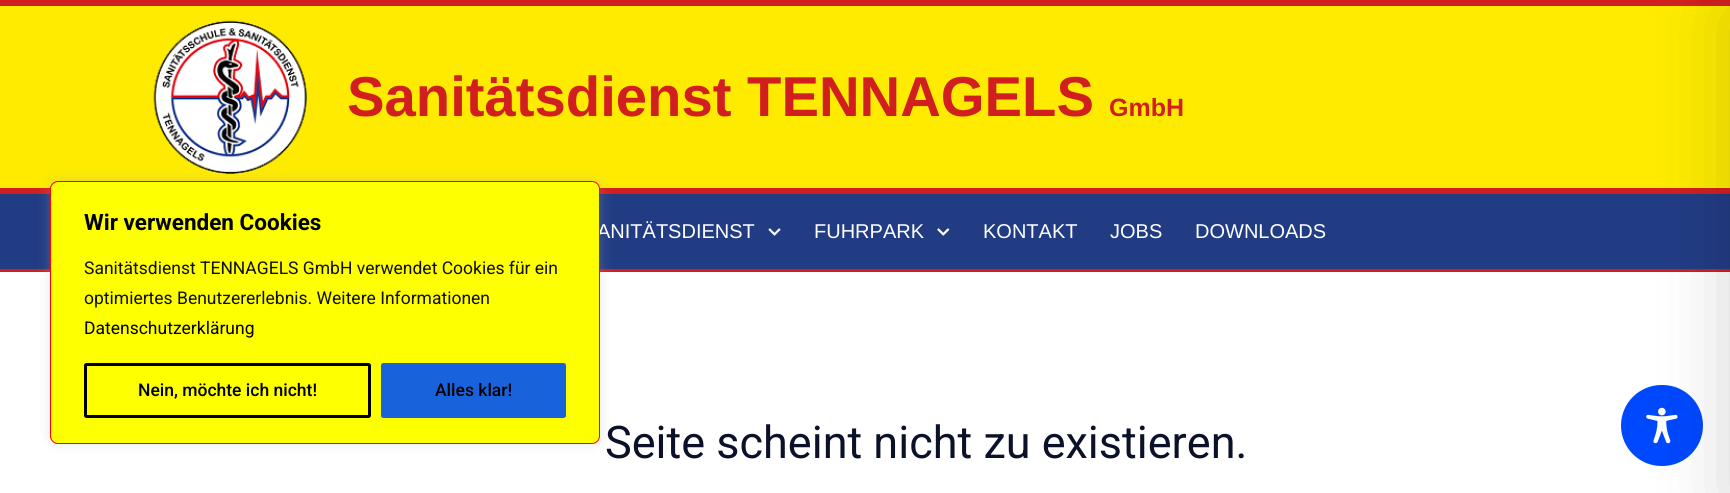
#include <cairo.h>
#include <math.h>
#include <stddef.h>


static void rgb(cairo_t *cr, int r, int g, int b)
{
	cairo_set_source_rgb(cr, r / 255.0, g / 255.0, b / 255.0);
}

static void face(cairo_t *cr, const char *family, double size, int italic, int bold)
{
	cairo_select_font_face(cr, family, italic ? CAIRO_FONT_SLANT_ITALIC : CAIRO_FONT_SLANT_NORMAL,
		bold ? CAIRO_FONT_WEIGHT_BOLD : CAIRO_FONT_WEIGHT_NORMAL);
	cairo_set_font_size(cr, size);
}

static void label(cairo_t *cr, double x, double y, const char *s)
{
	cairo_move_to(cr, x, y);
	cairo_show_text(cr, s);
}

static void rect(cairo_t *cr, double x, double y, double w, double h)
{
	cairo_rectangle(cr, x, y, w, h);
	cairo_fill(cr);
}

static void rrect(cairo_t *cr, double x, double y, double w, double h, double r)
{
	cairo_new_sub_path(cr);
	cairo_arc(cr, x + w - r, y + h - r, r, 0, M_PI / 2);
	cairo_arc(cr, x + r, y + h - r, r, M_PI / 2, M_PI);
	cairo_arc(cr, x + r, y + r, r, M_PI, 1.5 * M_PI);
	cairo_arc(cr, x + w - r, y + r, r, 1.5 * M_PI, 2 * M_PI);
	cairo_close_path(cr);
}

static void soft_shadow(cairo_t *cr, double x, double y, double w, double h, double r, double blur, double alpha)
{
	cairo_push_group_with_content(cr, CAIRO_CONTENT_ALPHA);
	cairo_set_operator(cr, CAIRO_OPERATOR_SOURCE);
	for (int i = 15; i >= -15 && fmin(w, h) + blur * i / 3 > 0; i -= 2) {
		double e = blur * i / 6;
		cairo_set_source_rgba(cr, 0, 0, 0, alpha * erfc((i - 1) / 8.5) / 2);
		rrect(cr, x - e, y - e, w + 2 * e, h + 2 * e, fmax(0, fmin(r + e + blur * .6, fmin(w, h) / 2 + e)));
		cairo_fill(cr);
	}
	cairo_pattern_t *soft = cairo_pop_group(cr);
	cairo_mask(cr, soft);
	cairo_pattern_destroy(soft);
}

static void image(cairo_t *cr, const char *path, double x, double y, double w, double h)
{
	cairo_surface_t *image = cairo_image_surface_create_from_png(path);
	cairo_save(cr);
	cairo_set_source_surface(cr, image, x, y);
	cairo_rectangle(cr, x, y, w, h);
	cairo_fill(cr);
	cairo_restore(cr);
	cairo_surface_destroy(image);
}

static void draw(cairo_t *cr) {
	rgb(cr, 255, 255, 255);
	cairo_paint(cr);
	rgb(cr, 254, 235, 0);
	rect(cr, 0, 6, 1730, 182);
	rgb(cr, 209, 31, 31);
	rect(cr, 0, 188, 1730, 6);
	image(cr, "image0.png", 153, 20, 154, 154);
	rgb(cr, 34, 60, 132);
	rect(cr, 0, 194, 1730, 75);
	rgb(cr, 209, 31, 31);
	rect(cr, 0, 269, 1730, 3);
	rgb(cr, 172, 171, 171);
	soft_shadow(cr, 50, 180, 550, 263, 8, 6, 0.3);
	face(cr, "Liberation Sans", 20, 0, 0);
	rgb(cr, 255, 255, 255);
	label(cr, 597, 238, "ANITÄTSDIENST");
	rgb(cr, 254, 255, 0);
	rrect(cr, 50.5, 181.5, 549, 262, 7.5);
	cairo_fill_preserve(cr);
	rgb(cr, 255, 0, 0);
	cairo_set_line_width(cr, 1);
	cairo_stroke(cr);
	face(cr, "Roboto", 22.5, 0, 1);
	rgb(cr, 0, 0, 0);
	label(cr, 84, 230, "Wir verwenden Cookies");
	face(cr, "Roboto", 17.5, 0, 0);
	rgb(cr, 15, 15, 15);
	label(cr, 84, 274, "Sanitätsdienst TENNAGELS GmbH verwendet Cookies für ein");
	label(cr, 84, 304, "optimiertes Benutzererlebnis. Weitere Informationen");
	rgb(cr, 0, 0, 0);
	label(cr, 84, 334, "Datenschutzerklärung");
	rrect(cr, 85.5, 364.5, 284, 52, 1);
	cairo_set_line_width(cr, 3);
	cairo_stroke(cr);
	face(cr, "Roboto Medium", 17.5, 0, 0);
	label(cr, 138, 396, "Nein, möchte ich nicht!");
	rgb(cr, 24, 99, 220);
	rrect(cr, 382.5, 364.5, 182, 52, 1);
	cairo_fill_preserve(cr);
	cairo_stroke(cr);
	rgb(cr, 0, 0, 0);
	label(cr, 435, 396, "Alles klar!");
	rgb(cr, 209, 31, 31);
	rect(cr, 0, 0, 1730, 6);
	face(cr, "Liberation Sans", 56.25, 0, 1);
	label(cr, 347, 116, "Sanitätsdienst TENNAGELS");
	face(cr, "Liberation Sans", 25, 0, 1);
	label(cr, 1109, 116, "GmbH");
	image(cr, "image1.png", 768, 228, 13, 8);
	face(cr, "Liberation Sans", 20, 0, 0);
	rgb(cr, 255, 255, 255);
	label(cr, 814, 238, "FUHRPARK");
	image(cr, "image2.png", 937, 228, 13, 8);
	label(cr, 983, 238, "KONTAKT");
	label(cr, 1110, 238, "JOBS");
	label(cr, 1195, 238, "DOWNLOADS");
	face(cr, "Roboto", 45, 0, 0);
	rgb(cr, 10, 17, 40);
	label(cr, 605, 458, "Seite scheint nicht zu existieren.");
	rgb(cr, 0, 72, 254);
	rrect(cr, 1621, 385, 82, 81, 40.5);
	cairo_fill(cr);
	image(cr, "image3.png", 1646, 407, 32, 37);
	rgb(cr, 0, 0, 0);
	soft_shadow(cr, 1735, 13, 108, 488, 0, 37.5, 0.2);
}

int main(void) {
	cairo_surface_t *surface = cairo_image_surface_create(CAIRO_FORMAT_RGB24, 1730, 493);
	cairo_t *cr = cairo_create(surface);
	cairo_font_options_t *options = cairo_font_options_create();
	cairo_font_options_set_hint_metrics(options, CAIRO_HINT_METRICS_OFF);
	cairo_font_options_set_hint_style(options, CAIRO_HINT_STYLE_NONE);
	cairo_set_font_options(cr, options);
	cairo_set_miter_limit(cr, 4);
	draw(cr);
	cairo_surface_write_to_png(surface, "render.png");
	cairo_font_options_destroy(options);
	cairo_destroy(cr);
	cairo_surface_destroy(surface);
	return 0;
}
